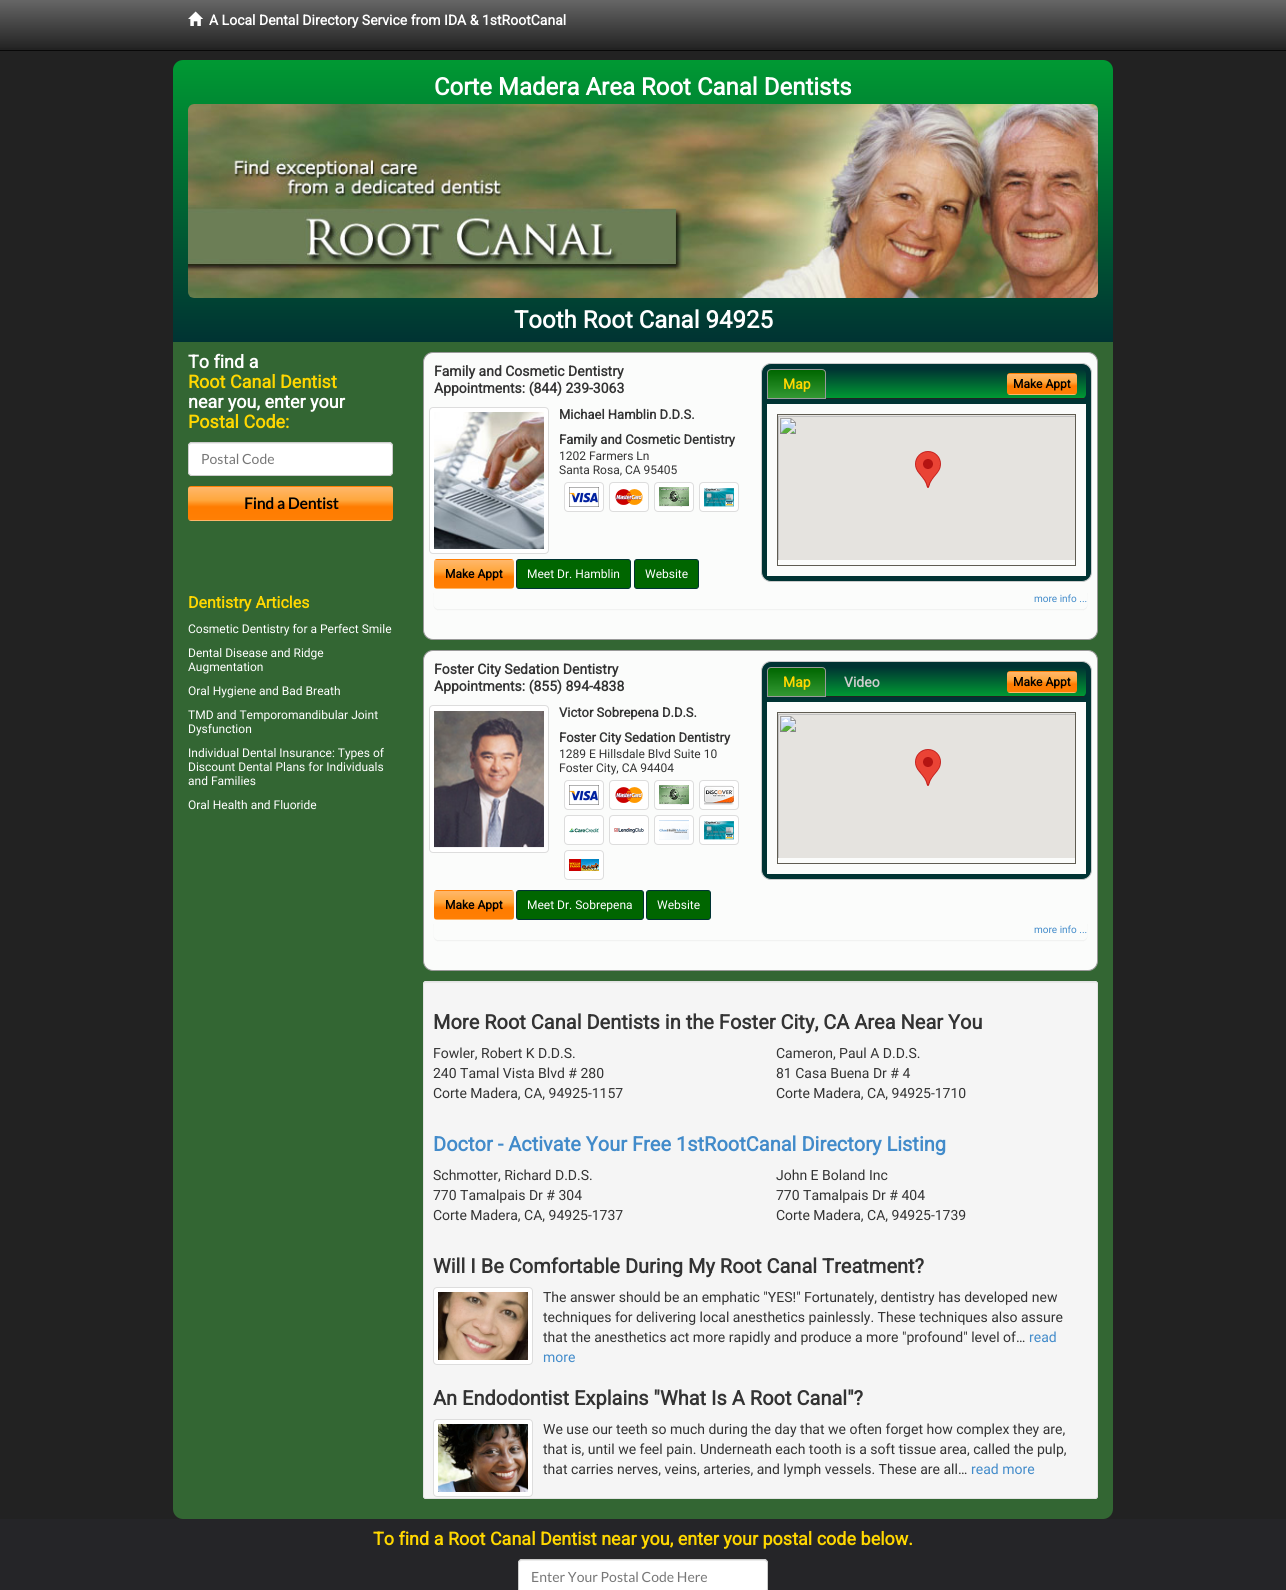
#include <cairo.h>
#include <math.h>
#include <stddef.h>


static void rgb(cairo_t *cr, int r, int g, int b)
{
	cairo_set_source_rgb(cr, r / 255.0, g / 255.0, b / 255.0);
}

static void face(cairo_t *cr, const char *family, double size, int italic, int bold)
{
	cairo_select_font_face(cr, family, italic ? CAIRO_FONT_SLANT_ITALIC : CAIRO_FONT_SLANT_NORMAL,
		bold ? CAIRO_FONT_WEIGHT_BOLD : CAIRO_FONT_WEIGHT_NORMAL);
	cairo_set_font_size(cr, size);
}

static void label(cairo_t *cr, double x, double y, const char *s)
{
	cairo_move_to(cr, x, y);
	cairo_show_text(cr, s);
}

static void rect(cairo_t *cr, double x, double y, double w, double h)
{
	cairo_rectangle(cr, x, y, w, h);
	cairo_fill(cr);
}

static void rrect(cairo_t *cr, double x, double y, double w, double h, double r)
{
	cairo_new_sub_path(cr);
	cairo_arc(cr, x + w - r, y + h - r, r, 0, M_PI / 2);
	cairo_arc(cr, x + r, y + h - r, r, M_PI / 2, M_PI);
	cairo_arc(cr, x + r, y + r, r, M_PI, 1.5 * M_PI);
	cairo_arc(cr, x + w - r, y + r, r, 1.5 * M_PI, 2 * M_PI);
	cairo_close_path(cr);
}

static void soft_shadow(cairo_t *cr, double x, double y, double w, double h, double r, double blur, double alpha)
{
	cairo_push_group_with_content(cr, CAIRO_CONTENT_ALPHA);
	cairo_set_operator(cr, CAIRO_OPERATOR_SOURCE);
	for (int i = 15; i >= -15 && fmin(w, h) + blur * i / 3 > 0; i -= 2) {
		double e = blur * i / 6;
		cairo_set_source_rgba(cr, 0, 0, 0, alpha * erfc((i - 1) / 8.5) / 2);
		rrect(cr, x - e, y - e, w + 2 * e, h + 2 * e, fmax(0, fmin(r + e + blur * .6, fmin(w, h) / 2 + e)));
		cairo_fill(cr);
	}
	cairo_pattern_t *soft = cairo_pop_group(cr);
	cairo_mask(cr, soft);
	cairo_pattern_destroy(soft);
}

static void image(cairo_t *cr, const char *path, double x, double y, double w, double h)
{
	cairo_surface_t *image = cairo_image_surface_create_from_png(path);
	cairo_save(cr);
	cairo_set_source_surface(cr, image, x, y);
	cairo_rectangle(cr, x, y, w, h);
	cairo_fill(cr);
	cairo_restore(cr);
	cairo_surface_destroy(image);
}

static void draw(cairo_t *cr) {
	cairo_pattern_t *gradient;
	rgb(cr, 34, 34, 34);
	cairo_paint(cr);
	gradient = cairo_pattern_create_linear(643, 0, 643, 50);
	cairo_pattern_add_color_stop_rgba(gradient, 0, 0.4, 0.4, 0.4, 1);
	cairo_pattern_add_color_stop_rgba(gradient, 1, 0.133, 0.133, 0.133, 1);
	cairo_set_source(cr, gradient);
	cairo_pattern_destroy(gradient);
	rect(cr, 0, 0, 1286, 48);
	rgb(cr, 8, 8, 8);
	rect(cr, 0, 50, 1286, 1);
	image(cr, "image0.png", 188, 11, 15, 15);
	face(cr, "Roboto", 14, 0, 1);
	rgb(cr, 255, 255, 255);
	label(cr, 209, 25, "A Local Dental Directory Service from IDA & 1stRootCanal");
	gradient = cairo_pattern_create_linear(643, 60, 643, 342);
	cairo_pattern_add_color_stop_rgba(gradient, 0, 0, 0.6, 0.2, 1);
	cairo_pattern_add_color_stop_rgba(gradient, 1, 0, 0.2, 0.2, 1);
	cairo_set_source(cr, gradient);
	cairo_pattern_destroy(gradient);
	cairo_new_path(cr);
	cairo_move_to(cr, 183, 60);
	cairo_line_to(cr, 1103, 60);
	cairo_curve_to(cr, 1108.5, 60, 1113, 64.5, 1113, 70);
	cairo_line_to(cr, 1113, 342);
	cairo_line_to(cr, 173, 342);
	cairo_line_to(cr, 173, 70);
	cairo_curve_to(cr, 173, 64.5, 177.5, 60, 183, 60);
	cairo_close_path(cr);
	cairo_fill(cr);
	face(cr, "Roboto", 24, 0, 1);
	rgb(cr, 255, 255, 255);
	label(cr, 434, 95, "Corte Madera Area Root Canal Dentists");
	image(cr, "image1.png", 188, 104, 910, 194);
	label(cr, 514, 328, "Tooth Root Canal 94925");
	rgb(cr, 51, 102, 51);
	cairo_new_path(cr);
	cairo_move_to(cr, 173, 342);
	cairo_line_to(cr, 1113, 342);
	cairo_line_to(cr, 1113, 1509);
	cairo_curve_to(cr, 1113, 1514.5, 1108.5, 1519, 1103, 1519);
	cairo_line_to(cr, 183, 1519);
	cairo_curve_to(cr, 177.5, 1519, 173, 1514.5, 173, 1509);
	cairo_close_path(cr);
	cairo_fill(cr);
	face(cr, "Roboto", 18, 0, 1);
	rgb(cr, 255, 255, 255);
	label(cr, 188, 368, "To find a");
	rgb(cr, 255, 215, 0);
	label(cr, 188, 388, "Root Canal Dentist");
	rgb(cr, 255, 255, 255);
	label(cr, 188, 408, "near you, enter your");
	rgb(cr, 255, 215, 0);
	label(cr, 188, 428, "Postal Code:");
	rgb(cr, 255, 255, 255);
	rrect(cr, 188, 442, 205, 34, 4);
	cairo_fill(cr);
	rgb(cr, 236, 236, 236);
	cairo_new_path(cr);
	cairo_move_to(cr, 192, 444);
	cairo_line_to(cr, 389, 444);
	cairo_curve_to(cr, 391, 444, 392, 445, 392, 447);
	cairo_curve_to(cr, 392, 445, 391, 443, 389, 443);
	cairo_line_to(cr, 192, 443);
	cairo_curve_to(cr, 190, 443, 189, 445, 189, 447);
	cairo_curve_to(cr, 189, 445, 190, 444, 192, 444);
	cairo_close_path(cr);
	cairo_fill(cr);
	rrect(cr, 188.5, 442.5, 204, 33, 3.5);
	rgb(cr, 204, 204, 204);
	cairo_set_line_width(cr, 1);
	cairo_stroke(cr);
	face(cr, "Lato", 14, 0, 0);
	rgb(cr, 119, 119, 119);
	label(cr, 201, 464, "Postal Code");
	cairo_save(cr);
	rrect(cr, 188, 486, 205, 35, 3);
	cairo_clip(cr);
	gradient = cairo_pattern_create_linear(291, 454, 291, 487);
	cairo_pattern_add_color_stop_rgba(gradient, 0, 1, 0.718, 0.42, 1);
	cairo_pattern_add_color_stop_rgba(gradient, 0.4, 1, 0.655, 0.239, 1);
	cairo_pattern_add_color_stop_rgba(gradient, 0.6, 1, 0.486, 0, 1);
	cairo_pattern_add_color_stop_rgba(gradient, 1, 1, 0.498, 0.016, 1);
	cairo_set_source(cr, gradient);
	cairo_pattern_destroy(gradient);
	rect(cr, 188, 486, 205, 1);
	gradient = cairo_pattern_create_linear(291, 487, 291, 520);
	cairo_pattern_add_color_stop_rgba(gradient, 0, 1, 0.718, 0.42, 1);
	cairo_pattern_add_color_stop_rgba(gradient, 0.4, 1, 0.655, 0.239, 1);
	cairo_pattern_add_color_stop_rgba(gradient, 0.6, 1, 0.486, 0, 1);
	cairo_pattern_add_color_stop_rgba(gradient, 1, 1, 0.498, 0.016, 1);
	cairo_set_source(cr, gradient);
	cairo_pattern_destroy(gradient);
	rect(cr, 188, 487, 205, 33);
	gradient = cairo_pattern_create_linear(291, 520, 291, 553);
	cairo_pattern_add_color_stop_rgba(gradient, 0, 1, 0.718, 0.42, 1);
	cairo_pattern_add_color_stop_rgba(gradient, 0.4, 1, 0.655, 0.239, 1);
	cairo_pattern_add_color_stop_rgba(gradient, 0.6, 1, 0.486, 0, 1);
	cairo_pattern_add_color_stop_rgba(gradient, 1, 1, 0.498, 0.016, 1);
	cairo_set_source(cr, gradient);
	cairo_pattern_destroy(gradient);
	rect(cr, 188, 520, 205, 1);
	cairo_restore(cr);
	face(cr, "Lato", 15.5, 0, 1);
	rgb(cr, 0, 0, 0);
	label(cr, 244, 509, "Find a Dentist");
	face(cr, "Roboto", 16, 0, 1);
	rgb(cr, 255, 215, 0);
	label(cr, 188, 608, "Dentistry Articles");
	face(cr, "Roboto", 12, 0, 0);
	rgb(cr, 255, 255, 255);
	label(cr, 188, 633, "Cosmetic Dentistry for a Perfect Smile");
	label(cr, 188, 657, "Dental Disease and Ridge");
	label(cr, 188, 671, "Augmentation");
	label(cr, 188, 695, "Oral Hygiene and Bad Breath");
	label(cr, 188, 719, "TMD and Temporomandibular Joint");
	label(cr, 188, 733, "Dysfunction");
	label(cr, 188, 757, "Individual Dental Insurance: Types of");
	label(cr, 188, 771, "Discount Dental Plans for Individuals");
	label(cr, 188, 785, "and Families");
	label(cr, 188, 809, "Oral Health and Fluoride");
	rgb(cr, 251, 252, 251);
	rrect(cr, 423.5, 352.5, 674, 287, 9.5);
	cairo_fill_preserve(cr);
	rgb(cr, 153, 153, 153);
	cairo_stroke(cr);
	face(cr, "Roboto", 14, 0, 1);
	rgb(cr, 51, 51, 51);
	label(cr, 434, 376, "Family and Cosmetic Dentistry");
	label(cr, 434, 393, "Appointments: (844) 239-3063");
	rgb(cr, 255, 255, 255);
	rrect(cr, 429.5, 407.5, 119, 146, 3.5);
	cairo_fill_preserve(cr);
	rgb(cr, 221, 221, 221);
	cairo_stroke(cr);
	image(cr, "image2.png", 434, 412, 110, 137);
	face(cr, "Roboto", 13, 0, 1);
	rgb(cr, 51, 51, 51);
	label(cr, 559, 419, "Michael Hamblin D.D.S.");
	label(cr, 559, 444, "Family and Cosmetic Dentistry");
	face(cr, "Roboto", 12, 0, 0);
	label(cr, 559, 460, "1202 Farmers Ln");
	label(cr, 559, 474, "Santa Rosa, CA 95405");
	rgb(cr, 255, 255, 255);
	rrect(cr, 564.5, 482.5, 39, 29, 3.5);
	cairo_fill_preserve(cr);
	rgb(cr, 221, 221, 221);
	cairo_stroke(cr);
	image(cr, "image3.png", 569, 487, 30, 20);
	rgb(cr, 255, 255, 255);
	rrect(cr, 609.5, 482.5, 39, 29, 3.5);
	cairo_fill_preserve(cr);
	rgb(cr, 221, 221, 221);
	cairo_stroke(cr);
	image(cr, "image4.png", 615, 489, 28, 16);
	rgb(cr, 255, 255, 255);
	rrect(cr, 654.5, 482.5, 39, 29, 3.5);
	cairo_fill_preserve(cr);
	rgb(cr, 221, 221, 221);
	cairo_stroke(cr);
	image(cr, "image5.png", 659, 487, 30, 20);
	rgb(cr, 255, 255, 255);
	rrect(cr, 699.5, 482.5, 39, 29, 3.5);
	cairo_fill_preserve(cr);
	rgb(cr, 221, 221, 221);
	cairo_stroke(cr);
	image(cr, "image6.png", 704, 488, 30, 19);
	cairo_save(cr);
	rrect(cr, 434, 559, 80, 30, 3);
	cairo_clip(cr);
	gradient = cairo_pattern_create_linear(474, 532, 474, 560);
	cairo_pattern_add_color_stop_rgba(gradient, 0, 1, 0.718, 0.42, 1);
	cairo_pattern_add_color_stop_rgba(gradient, 0.4, 1, 0.655, 0.239, 1);
	cairo_pattern_add_color_stop_rgba(gradient, 0.6, 1, 0.486, 0, 1);
	cairo_pattern_add_color_stop_rgba(gradient, 1, 1, 0.498, 0.016, 1);
	cairo_set_source(cr, gradient);
	cairo_pattern_destroy(gradient);
	rect(cr, 434, 559, 80, 1);
	gradient = cairo_pattern_create_linear(474, 560, 474, 588);
	cairo_pattern_add_color_stop_rgba(gradient, 0, 1, 0.718, 0.42, 1);
	cairo_pattern_add_color_stop_rgba(gradient, 0.4, 1, 0.655, 0.239, 1);
	cairo_pattern_add_color_stop_rgba(gradient, 0.6, 1, 0.486, 0, 1);
	cairo_pattern_add_color_stop_rgba(gradient, 1, 1, 0.498, 0.016, 1);
	cairo_set_source(cr, gradient);
	cairo_pattern_destroy(gradient);
	rect(cr, 434, 560, 80, 28);
	gradient = cairo_pattern_create_linear(474, 588, 474, 616);
	cairo_pattern_add_color_stop_rgba(gradient, 0, 1, 0.718, 0.42, 1);
	cairo_pattern_add_color_stop_rgba(gradient, 0.4, 1, 0.655, 0.239, 1);
	cairo_pattern_add_color_stop_rgba(gradient, 0.6, 1, 0.486, 0, 1);
	cairo_pattern_add_color_stop_rgba(gradient, 1, 1, 0.498, 0.016, 1);
	cairo_set_source(cr, gradient);
	cairo_pattern_destroy(gradient);
	rect(cr, 434, 588, 80, 1);
	cairo_restore(cr);
	face(cr, "Roboto", 12, 0, 1);
	rgb(cr, 0, 0, 0);
	label(cr, 445, 578, "Make Appt");
	rgb(cr, 0, 102, 0);
	rrect(cr, 516.5, 559.5, 114, 29, 2.5);
	cairo_fill_preserve(cr);
	rgb(cr, 0, 51, 51);
	cairo_stroke(cr);
	face(cr, "Roboto", 12, 0, 0);
	rgb(cr, 255, 255, 255);
	label(cr, 527, 578, "Meet Dr. Hamblin");
	rgb(cr, 0, 102, 0);
	rrect(cr, 634.5, 559.5, 64, 29, 2.5);
	cairo_fill_preserve(cr);
	rgb(cr, 0, 51, 51);
	cairo_stroke(cr);
	rgb(cr, 255, 255, 255);
	label(cr, 645, 578, "Website");
	rgb(cr, 0, 51, 51);
	rrect(cr, 761.5, 363.5, 330, 218, 9.5);
	cairo_fill_preserve(cr);
	rgb(cr, 204, 204, 204);
	cairo_stroke(cr);
	cairo_save(cr);
	rrect(cr, 767, 369, 319, 30, 5);
	cairo_clip(cr);
	gradient = cairo_pattern_create_linear(927, 369, 927, 398);
	cairo_pattern_add_color_stop_rgba(gradient, 0, 0, 0.2, 0.2, 1);
	cairo_pattern_add_color_stop_rgba(gradient, 1, 0, 0.6, 0.2, 1);
	cairo_set_source(cr, gradient);
	cairo_pattern_destroy(gradient);
	cairo_new_path(cr);
	cairo_move_to(cr, 772, 369);
	cairo_line_to(cr, 1081, 369);
	cairo_curve_to(cr, 1084, 369, 1086, 371, 1086, 374);
	cairo_line_to(cr, 1086, 398);
	cairo_line_to(cr, 767, 398);
	cairo_line_to(cr, 767, 374);
	cairo_curve_to(cr, 767, 371, 769, 369, 772, 369);
	cairo_close_path(cr);
	cairo_fill(cr);
	cairo_restore(cr);
	rgb(cr, 34, 34, 34);
	rect(cr, 826, 398, 258, 1);
	cairo_save(cr);
	cairo_new_path(cr);
	cairo_move_to(cr, 771, 369);
	cairo_line_to(cr, 822, 369);
	cairo_curve_to(cr, 824, 369, 826, 371, 826, 373);
	cairo_line_to(cr, 826, 399);
	cairo_line_to(cr, 767, 399);
	cairo_line_to(cr, 767, 373);
	cairo_curve_to(cr, 767, 371, 769, 369, 771, 369);
	cairo_close_path(cr);
	cairo_clip(cr);
	gradient = cairo_pattern_create_linear(797, 370, 797, 398);
	cairo_pattern_add_color_stop_rgba(gradient, 0, 0, 0.4, 0, 1);
	cairo_pattern_add_color_stop_rgba(gradient, 1, 0.2, 0.6, 0.2, 1);
	cairo_set_source(cr, gradient);
	cairo_pattern_destroy(gradient);
	rect(cr, 767, 370, 59, 28);
	cairo_restore(cr);
	cairo_new_path(cr);
	cairo_move_to(cr, 771, 369.5);
	cairo_line_to(cr, 822, 369.5);
	cairo_curve_to(cr, 824, 369.5, 825.5, 371, 825.5, 373);
	cairo_line_to(cr, 825.5, 398.5);
	cairo_line_to(cr, 767.5, 398.5);
	cairo_line_to(cr, 767.5, 373);
	cairo_curve_to(cr, 767.5, 371, 769, 369.5, 771, 369.5);
	cairo_close_path(cr);
	rgb(cr, 153, 153, 153);
	cairo_stroke(cr);
	face(cr, "Roboto", 14, 0, 1);
	rgb(cr, 255, 215, 0);
	label(cr, 783, 389, "Map");
	rgb(cr, 251, 252, 251);
	rect(cr, 767, 404, 319, 172);
	cairo_rectangle(cr, 777.5, 414.5, 298, 151);
	rgb(cr, 95, 92, 82);
	cairo_stroke(cr);
	image(cr, "image7.png", 778, 415, 297, 145);
	cairo_save(cr);
	rrect(cr, 1007, 373, 70, 22, 3);
	cairo_clip(cr);
	gradient = cairo_pattern_create_linear(1042, 354, 1042, 374);
	cairo_pattern_add_color_stop_rgba(gradient, 0, 1, 0.718, 0.42, 1);
	cairo_pattern_add_color_stop_rgba(gradient, 0.4, 1, 0.655, 0.239, 1);
	cairo_pattern_add_color_stop_rgba(gradient, 0.6, 1, 0.486, 0, 1);
	cairo_pattern_add_color_stop_rgba(gradient, 1, 1, 0.498, 0.016, 1);
	cairo_set_source(cr, gradient);
	cairo_pattern_destroy(gradient);
	rect(cr, 1007, 373, 70, 1);
	gradient = cairo_pattern_create_linear(1042, 374, 1042, 394);
	cairo_pattern_add_color_stop_rgba(gradient, 0, 1, 0.718, 0.42, 1);
	cairo_pattern_add_color_stop_rgba(gradient, 0.4, 1, 0.655, 0.239, 1);
	cairo_pattern_add_color_stop_rgba(gradient, 0.6, 1, 0.486, 0, 1);
	cairo_pattern_add_color_stop_rgba(gradient, 1, 1, 0.498, 0.016, 1);
	cairo_set_source(cr, gradient);
	cairo_pattern_destroy(gradient);
	rect(cr, 1007, 374, 70, 20);
	gradient = cairo_pattern_create_linear(1042, 394, 1042, 414);
	cairo_pattern_add_color_stop_rgba(gradient, 0, 1, 0.718, 0.42, 1);
	cairo_pattern_add_color_stop_rgba(gradient, 0.4, 1, 0.655, 0.239, 1);
	cairo_pattern_add_color_stop_rgba(gradient, 0.6, 1, 0.486, 0, 1);
	cairo_pattern_add_color_stop_rgba(gradient, 1, 1, 0.498, 0.016, 1);
	cairo_set_source(cr, gradient);
	cairo_pattern_destroy(gradient);
	rect(cr, 1007, 394, 70, 1);
	cairo_restore(cr);
	face(cr, "Roboto", 12, 0, 1);
	rgb(cr, 0, 0, 0);
	label(cr, 1013, 388, "Make Appt");
	cairo_save(cr);
	cairo_set_fill_rule(cr, CAIRO_FILL_RULE_EVEN_ODD);
	cairo_new_path(cr);
	cairo_move_to(cr, 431, 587);
	cairo_line_to(cr, 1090, 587);
	cairo_line_to(cr, 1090, 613);
	cairo_line_to(cr, 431, 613);
	cairo_close_path(cr);
	cairo_move_to(cr, 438, 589);
	cairo_line_to(cr, 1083, 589);
	cairo_curve_to(cr, 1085, 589, 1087, 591, 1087, 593);
	cairo_line_to(cr, 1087, 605);
	cairo_curve_to(cr, 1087, 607, 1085, 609, 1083, 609);
	cairo_line_to(cr, 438, 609);
	cairo_curve_to(cr, 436, 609, 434, 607, 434, 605);
	cairo_line_to(cr, 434, 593);
	cairo_curve_to(cr, 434, 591, 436, 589, 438, 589);
	cairo_close_path(cr);
	cairo_clip(cr);
	rgb(cr, 0, 0, 0);
	soft_shadow(cr, 434, 590, 653, 20, 4, 0.5, 0.05);
	cairo_restore(cr);
	face(cr, "Roboto", 10, 0, 0);
	rgb(cr, 66, 139, 202);
	label(cr, 1034, 602, "more info ...");
	rgb(cr, 251, 252, 251);
	rrect(cr, 423.5, 650.5, 674, 320, 9.5);
	cairo_fill_preserve(cr);
	rgb(cr, 153, 153, 153);
	cairo_stroke(cr);
	face(cr, "Roboto", 14, 0, 1);
	rgb(cr, 51, 51, 51);
	label(cr, 434, 674, "Foster City Sedation Dentistry");
	label(cr, 434, 691, "Appointments: (855) 894-4838");
	rgb(cr, 255, 255, 255);
	rrect(cr, 429.5, 705.5, 119, 147, 3.5);
	cairo_fill_preserve(cr);
	rgb(cr, 221, 221, 221);
	cairo_stroke(cr);
	image(cr, "image8.png", 434, 711, 110, 137);
	face(cr, "Roboto", 13, 0, 1);
	rgb(cr, 51, 51, 51);
	label(cr, 559, 717, "Victor Sobrepena D.D.S.");
	label(cr, 559, 742, "Foster City Sedation Dentistry");
	face(cr, "Roboto", 12, 0, 0);
	label(cr, 559, 758, "1289 E Hillsdale Blvd Suite 10");
	label(cr, 559, 772, "Foster City, CA 94404");
	rgb(cr, 255, 255, 255);
	rrect(cr, 564.5, 780.5, 39, 29, 3.5);
	cairo_fill_preserve(cr);
	rgb(cr, 221, 221, 221);
	cairo_stroke(cr);
	image(cr, "image3.png", 569, 785, 30, 20);
	rgb(cr, 255, 255, 255);
	rrect(cr, 609.5, 780.5, 39, 29, 3.5);
	cairo_fill_preserve(cr);
	rgb(cr, 221, 221, 221);
	cairo_stroke(cr);
	image(cr, "image4.png", 615, 787, 28, 16);
	rgb(cr, 255, 255, 255);
	rrect(cr, 654.5, 780.5, 39, 29, 3.5);
	cairo_fill_preserve(cr);
	rgb(cr, 221, 221, 221);
	cairo_stroke(cr);
	image(cr, "image5.png", 659, 785, 30, 20);
	rgb(cr, 255, 255, 255);
	rrect(cr, 699.5, 780.5, 39, 29, 3.5);
	cairo_fill_preserve(cr);
	rgb(cr, 221, 221, 221);
	cairo_stroke(cr);
	image(cr, "image9.png", 704, 785, 30, 20);
	rgb(cr, 255, 255, 255);
	rrect(cr, 564.5, 815.5, 39, 29, 3.5);
	cairo_fill_preserve(cr);
	rgb(cr, 221, 221, 221);
	cairo_stroke(cr);
	image(cr, "image10.png", 569, 828, 30, 5);
	rgb(cr, 255, 255, 255);
	rrect(cr, 609.5, 815.5, 39, 29, 3.5);
	cairo_fill_preserve(cr);
	rgb(cr, 221, 221, 221);
	cairo_stroke(cr);
	image(cr, "image11.png", 614, 828, 30, 6);
	rgb(cr, 255, 255, 255);
	rrect(cr, 654.5, 815.5, 39, 29, 3.5);
	cairo_fill_preserve(cr);
	rgb(cr, 221, 221, 221);
	cairo_stroke(cr);
	image(cr, "image12.png", 659, 820, 30, 20);
	rgb(cr, 255, 255, 255);
	rrect(cr, 699.5, 815.5, 39, 29, 3.5);
	cairo_fill_preserve(cr);
	rgb(cr, 221, 221, 221);
	cairo_stroke(cr);
	image(cr, "image6.png", 704, 821, 30, 19);
	rgb(cr, 255, 255, 255);
	rrect(cr, 564.5, 850.5, 39, 29, 3.5);
	cairo_fill_preserve(cr);
	rgb(cr, 221, 221, 221);
	cairo_stroke(cr);
	image(cr, "image13.png", 569, 859, 30, 12);
	cairo_save(cr);
	rrect(cr, 434, 890, 80, 30, 3);
	cairo_clip(cr);
	gradient = cairo_pattern_create_linear(474, 863, 474, 891);
	cairo_pattern_add_color_stop_rgba(gradient, 0, 1, 0.718, 0.42, 1);
	cairo_pattern_add_color_stop_rgba(gradient, 0.4, 1, 0.655, 0.239, 1);
	cairo_pattern_add_color_stop_rgba(gradient, 0.6, 1, 0.486, 0, 1);
	cairo_pattern_add_color_stop_rgba(gradient, 1, 1, 0.498, 0.016, 1);
	cairo_set_source(cr, gradient);
	cairo_pattern_destroy(gradient);
	rect(cr, 434, 890, 80, 1);
	gradient = cairo_pattern_create_linear(474, 891, 474, 919);
	cairo_pattern_add_color_stop_rgba(gradient, 0, 1, 0.718, 0.42, 1);
	cairo_pattern_add_color_stop_rgba(gradient, 0.4, 1, 0.655, 0.239, 1);
	cairo_pattern_add_color_stop_rgba(gradient, 0.6, 1, 0.486, 0, 1);
	cairo_pattern_add_color_stop_rgba(gradient, 1, 1, 0.498, 0.016, 1);
	cairo_set_source(cr, gradient);
	cairo_pattern_destroy(gradient);
	rect(cr, 434, 891, 80, 28);
	gradient = cairo_pattern_create_linear(474, 919, 474, 947);
	cairo_pattern_add_color_stop_rgba(gradient, 0, 1, 0.718, 0.42, 1);
	cairo_pattern_add_color_stop_rgba(gradient, 0.4, 1, 0.655, 0.239, 1);
	cairo_pattern_add_color_stop_rgba(gradient, 0.6, 1, 0.486, 0, 1);
	cairo_pattern_add_color_stop_rgba(gradient, 1, 1, 0.498, 0.016, 1);
	cairo_set_source(cr, gradient);
	cairo_pattern_destroy(gradient);
	rect(cr, 434, 919, 80, 1);
	cairo_restore(cr);
	face(cr, "Roboto", 12, 0, 1);
	rgb(cr, 0, 0, 0);
	label(cr, 445, 909, "Make Appt");
	rgb(cr, 0, 102, 0);
	rrect(cr, 516.5, 890.5, 127, 29, 2.5);
	cairo_fill_preserve(cr);
	rgb(cr, 0, 51, 51);
	cairo_stroke(cr);
	face(cr, "Roboto", 12, 0, 0);
	rgb(cr, 255, 255, 255);
	label(cr, 527, 909, "Meet Dr. Sobrepena");
	rgb(cr, 0, 102, 0);
	rrect(cr, 646.5, 890.5, 64, 29, 2.5);
	cairo_fill_preserve(cr);
	rgb(cr, 0, 51, 51);
	cairo_stroke(cr);
	rgb(cr, 255, 255, 255);
	label(cr, 657, 909, "Website");
	rgb(cr, 0, 51, 51);
	rrect(cr, 761.5, 661.5, 330, 218, 9.5);
	cairo_fill_preserve(cr);
	rgb(cr, 204, 204, 204);
	cairo_stroke(cr);
	cairo_save(cr);
	rrect(cr, 767, 667, 319, 30, 5);
	cairo_clip(cr);
	gradient = cairo_pattern_create_linear(927, 667, 927, 696);
	cairo_pattern_add_color_stop_rgba(gradient, 0, 0, 0.2, 0.2, 1);
	cairo_pattern_add_color_stop_rgba(gradient, 1, 0, 0.6, 0.2, 1);
	cairo_set_source(cr, gradient);
	cairo_pattern_destroy(gradient);
	cairo_new_path(cr);
	cairo_move_to(cr, 772, 667);
	cairo_line_to(cr, 1081, 667);
	cairo_curve_to(cr, 1084, 667, 1086, 669, 1086, 672);
	cairo_line_to(cr, 1086, 696);
	cairo_line_to(cr, 767, 696);
	cairo_line_to(cr, 767, 672);
	cairo_curve_to(cr, 767, 669, 769, 667, 772, 667);
	cairo_close_path(cr);
	cairo_fill(cr);
	cairo_restore(cr);
	rgb(cr, 34, 34, 34);
	rect(cr, 826, 696, 258, 1);
	cairo_save(cr);
	cairo_new_path(cr);
	cairo_move_to(cr, 771, 667);
	cairo_line_to(cr, 822, 667);
	cairo_curve_to(cr, 824, 667, 826, 669, 826, 671);
	cairo_line_to(cr, 826, 697);
	cairo_line_to(cr, 767, 697);
	cairo_line_to(cr, 767, 671);
	cairo_curve_to(cr, 767, 669, 769, 667, 771, 667);
	cairo_close_path(cr);
	cairo_clip(cr);
	gradient = cairo_pattern_create_linear(797, 668, 797, 696);
	cairo_pattern_add_color_stop_rgba(gradient, 0, 0, 0.4, 0, 1);
	cairo_pattern_add_color_stop_rgba(gradient, 1, 0.2, 0.6, 0.2, 1);
	cairo_set_source(cr, gradient);
	cairo_pattern_destroy(gradient);
	rect(cr, 767, 668, 59, 28);
	cairo_restore(cr);
	cairo_new_path(cr);
	cairo_move_to(cr, 771, 667.5);
	cairo_line_to(cr, 822, 667.5);
	cairo_curve_to(cr, 824, 667.5, 825.5, 669, 825.5, 671);
	cairo_line_to(cr, 825.5, 696.5);
	cairo_line_to(cr, 767.5, 696.5);
	cairo_line_to(cr, 767.5, 671);
	cairo_curve_to(cr, 767.5, 669, 769, 667.5, 771, 667.5);
	cairo_close_path(cr);
	rgb(cr, 153, 153, 153);
	cairo_stroke(cr);
	face(cr, "Roboto", 14, 0, 1);
	rgb(cr, 255, 215, 0);
	label(cr, 783, 687, "Map");
	rgb(cr, 204, 204, 204);
	label(cr, 844, 687, "Video");
	rgb(cr, 251, 252, 251);
	rect(cr, 767, 702, 319, 172);
	cairo_rectangle(cr, 777.5, 712.5, 298, 151);
	rgb(cr, 95, 92, 82);
	cairo_stroke(cr);
	image(cr, "image7.png", 778, 713, 297, 145);
	cairo_save(cr);
	rrect(cr, 1007, 671, 70, 22, 3);
	cairo_clip(cr);
	gradient = cairo_pattern_create_linear(1042, 652, 1042, 672);
	cairo_pattern_add_color_stop_rgba(gradient, 0, 1, 0.718, 0.42, 1);
	cairo_pattern_add_color_stop_rgba(gradient, 0.4, 1, 0.655, 0.239, 1);
	cairo_pattern_add_color_stop_rgba(gradient, 0.6, 1, 0.486, 0, 1);
	cairo_pattern_add_color_stop_rgba(gradient, 1, 1, 0.498, 0.016, 1);
	cairo_set_source(cr, gradient);
	cairo_pattern_destroy(gradient);
	rect(cr, 1007, 671, 70, 1);
	gradient = cairo_pattern_create_linear(1042, 672, 1042, 692);
	cairo_pattern_add_color_stop_rgba(gradient, 0, 1, 0.718, 0.42, 1);
	cairo_pattern_add_color_stop_rgba(gradient, 0.4, 1, 0.655, 0.239, 1);
	cairo_pattern_add_color_stop_rgba(gradient, 0.6, 1, 0.486, 0, 1);
	cairo_pattern_add_color_stop_rgba(gradient, 1, 1, 0.498, 0.016, 1);
	cairo_set_source(cr, gradient);
	cairo_pattern_destroy(gradient);
	rect(cr, 1007, 672, 70, 20);
	gradient = cairo_pattern_create_linear(1042, 692, 1042, 712);
	cairo_pattern_add_color_stop_rgba(gradient, 0, 1, 0.718, 0.42, 1);
	cairo_pattern_add_color_stop_rgba(gradient, 0.4, 1, 0.655, 0.239, 1);
	cairo_pattern_add_color_stop_rgba(gradient, 0.6, 1, 0.486, 0, 1);
	cairo_pattern_add_color_stop_rgba(gradient, 1, 1, 0.498, 0.016, 1);
	cairo_set_source(cr, gradient);
	cairo_pattern_destroy(gradient);
	rect(cr, 1007, 692, 70, 1);
	cairo_restore(cr);
	face(cr, "Roboto", 12, 0, 1);
	rgb(cr, 0, 0, 0);
	label(cr, 1013, 686, "Make Appt");
	cairo_save(cr);
	cairo_set_fill_rule(cr, CAIRO_FILL_RULE_EVEN_ODD);
	cairo_new_path(cr);
	cairo_move_to(cr, 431, 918);
	cairo_line_to(cr, 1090, 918);
	cairo_line_to(cr, 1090, 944);
	cairo_line_to(cr, 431, 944);
	cairo_close_path(cr);
	cairo_move_to(cr, 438, 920);
	cairo_line_to(cr, 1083, 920);
	cairo_curve_to(cr, 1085, 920, 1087, 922, 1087, 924);
	cairo_line_to(cr, 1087, 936);
	cairo_curve_to(cr, 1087, 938, 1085, 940, 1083, 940);
	cairo_line_to(cr, 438, 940);
	cairo_curve_to(cr, 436, 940, 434, 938, 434, 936);
	cairo_line_to(cr, 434, 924);
	cairo_curve_to(cr, 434, 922, 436, 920, 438, 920);
	cairo_close_path(cr);
	cairo_clip(cr);
	rgb(cr, 0, 0, 0);
	soft_shadow(cr, 434, 921, 653, 20, 4, 0.5, 0.05);
	cairo_restore(cr);
	face(cr, "Roboto", 10, 0, 0);
	rgb(cr, 66, 139, 202);
	label(cr, 1034, 933, "more info ...");
	rgb(cr, 245, 245, 245);
	rrect(cr, 423, 981, 675, 518, 3);
	cairo_fill(cr);
	rgb(cr, 233, 233, 233);
	cairo_new_path(cr);
	cairo_move_to(cr, 426, 983);
	cairo_line_to(cr, 1095, 983);
	cairo_curve_to(cr, 1096, 983, 1097, 984, 1097, 985);
	cairo_curve_to(cr, 1097, 984, 1097, 982, 1095, 982);
	cairo_line_to(cr, 426, 982);
	cairo_curve_to(cr, 424, 982, 424, 984, 424, 985);
	cairo_curve_to(cr, 424, 984, 425, 983, 426, 983);
	cairo_close_path(cr);
	cairo_fill(cr);
	rrect(cr, 423.5, 981.5, 674, 517, 2.5);
	rgb(cr, 227, 227, 227);
	cairo_stroke(cr);
	face(cr, "Roboto", 20, 0, 1);
	rgb(cr, 51, 51, 51);
	label(cr, 433, 1029, "More Root Canal Dentists in the Foster City, CA Area Near You");
	face(cr, "Roboto", 14, 0, 0);
	label(cr, 433, 1058, "Fowler, Robert K D.D.S.");
	label(cr, 433, 1078, "240 Tamal Vista Blvd # 280");
	label(cr, 433, 1098, "Corte Madera, CA, 94925-1157");
	label(cr, 776, 1058, "Cameron, Paul A D.D.S.");
	label(cr, 776, 1078, "81 Casa Buena Dr # 4");
	label(cr, 776, 1098, "Corte Madera, CA, 94925-1710");
	face(cr, "Roboto", 20, 0, 1);
	rgb(cr, 66, 139, 202);
	label(cr, 433, 1151, "Doctor - Activate Your Free 1stRootCanal Directory Listing");
	face(cr, "Roboto", 14, 0, 0);
	rgb(cr, 51, 51, 51);
	label(cr, 433, 1180, "Schmotter, Richard D.D.S.");
	label(cr, 433, 1200, "770 Tamalpais Dr # 304");
	label(cr, 433, 1220, "Corte Madera, CA, 94925-1737");
	label(cr, 776, 1180, "John E Boland Inc");
	label(cr, 776, 1200, "770 Tamalpais Dr # 404");
	label(cr, 776, 1220, "Corte Madera, CA, 94925-1739");
	face(cr, "Roboto", 20, 0, 1);
	label(cr, 433, 1273, "Will I Be Comfortable During My Root Canal Treatment?");
	rgb(cr, 255, 255, 255);
	rrect(cr, 433.5, 1287.5, 99, 77, 3.5);
	cairo_fill_preserve(cr);
	rgb(cr, 221, 221, 221);
	cairo_stroke(cr);
	image(cr, "image14.png", 438, 1292, 90, 68);
	face(cr, "Roboto", 14, 0, 0);
	rgb(cr, 51, 51, 51);
	label(cr, 543, 1302, "The answer should be an emphatic \"YES!\" Fortunately, dentistry has developed new");
	label(cr, 543, 1322, "techniques for delivering local anesthetics painlessly. These techniques also assure");
	label(cr, 543, 1342, "that the anesthetics act more rapidly and produce a more \"profound\" level of…");
	rgb(cr, 66, 139, 202);
	label(cr, 1029, 1342, "read");
	label(cr, 543, 1362, "more");
	face(cr, "Roboto", 20, 0, 1);
	rgb(cr, 51, 51, 51);
	label(cr, 433, 1405, "An Endodontist Explains \"What Is A Root Canal\"?");
	rgb(cr, 255, 255, 255);
	rrect(cr, 433.5, 1419.5, 99, 77, 3.5);
	cairo_fill_preserve(cr);
	rgb(cr, 221, 221, 221);
	cairo_stroke(cr);
	image(cr, "image15.png", 438, 1424, 90, 68);
	face(cr, "Roboto", 14, 0, 0);
	rgb(cr, 51, 51, 51);
	label(cr, 543, 1434, "We use our teeth so much during the day that we often forget how complex they are,");
	label(cr, 543, 1454, "that is, until we feel pain. Underneath each tooth is a soft tissue area, called the pulp,");
	label(cr, 543, 1474, "that carries nerves, veins, arteries, and lymph vessels. These are all…");
	rgb(cr, 66, 139, 202);
	label(cr, 971, 1474, "read more");
	rgb(cr, 37, 37, 40);
	rect(cr, 0, 1519, 1286, 71);
	face(cr, "Roboto", 18, 0, 1);
	rgb(cr, 255, 215, 0);
	label(cr, 373, 1545, "To find a Root Canal Dentist near you, enter your postal code below.");
	rgb(cr, 255, 255, 255);
	rrect(cr, 518, 1559, 250, 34, 4);
	cairo_fill(cr);
	rgb(cr, 236, 236, 236);
	cairo_new_path(cr);
	cairo_move_to(cr, 522, 1561);
	cairo_line_to(cr, 764, 1561);
	cairo_curve_to(cr, 766, 1561, 767, 1562, 767, 1564);
	cairo_curve_to(cr, 767, 1562, 766, 1560, 764, 1560);
	cairo_line_to(cr, 522, 1560);
	cairo_curve_to(cr, 520, 1560, 519, 1562, 519, 1564);
	cairo_curve_to(cr, 519, 1562, 520, 1561, 522, 1561);
	cairo_close_path(cr);
	cairo_fill(cr);
	rrect(cr, 518.5, 1559.5, 249, 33, 3.5);
	rgb(cr, 204, 204, 204);
	cairo_stroke(cr);
	face(cr, "Lato", 14, 0, 0);
	rgb(cr, 119, 119, 119);
	label(cr, 531, 1582, "Enter Your Postal Code Here");
}

int main(void) {
	cairo_surface_t *surface = cairo_image_surface_create(CAIRO_FORMAT_RGB24, 1286, 1590);
	cairo_t *cr = cairo_create(surface);
	cairo_font_options_t *options = cairo_font_options_create();
	cairo_font_options_set_hint_metrics(options, CAIRO_HINT_METRICS_OFF);
	cairo_font_options_set_hint_style(options, CAIRO_HINT_STYLE_NONE);
	cairo_set_font_options(cr, options);
	cairo_set_miter_limit(cr, 4);
	draw(cr);
	cairo_surface_write_to_png(surface, "render.png");
	cairo_font_options_destroy(options);
	cairo_destroy(cr);
	cairo_surface_destroy(surface);
	return 0;
}
